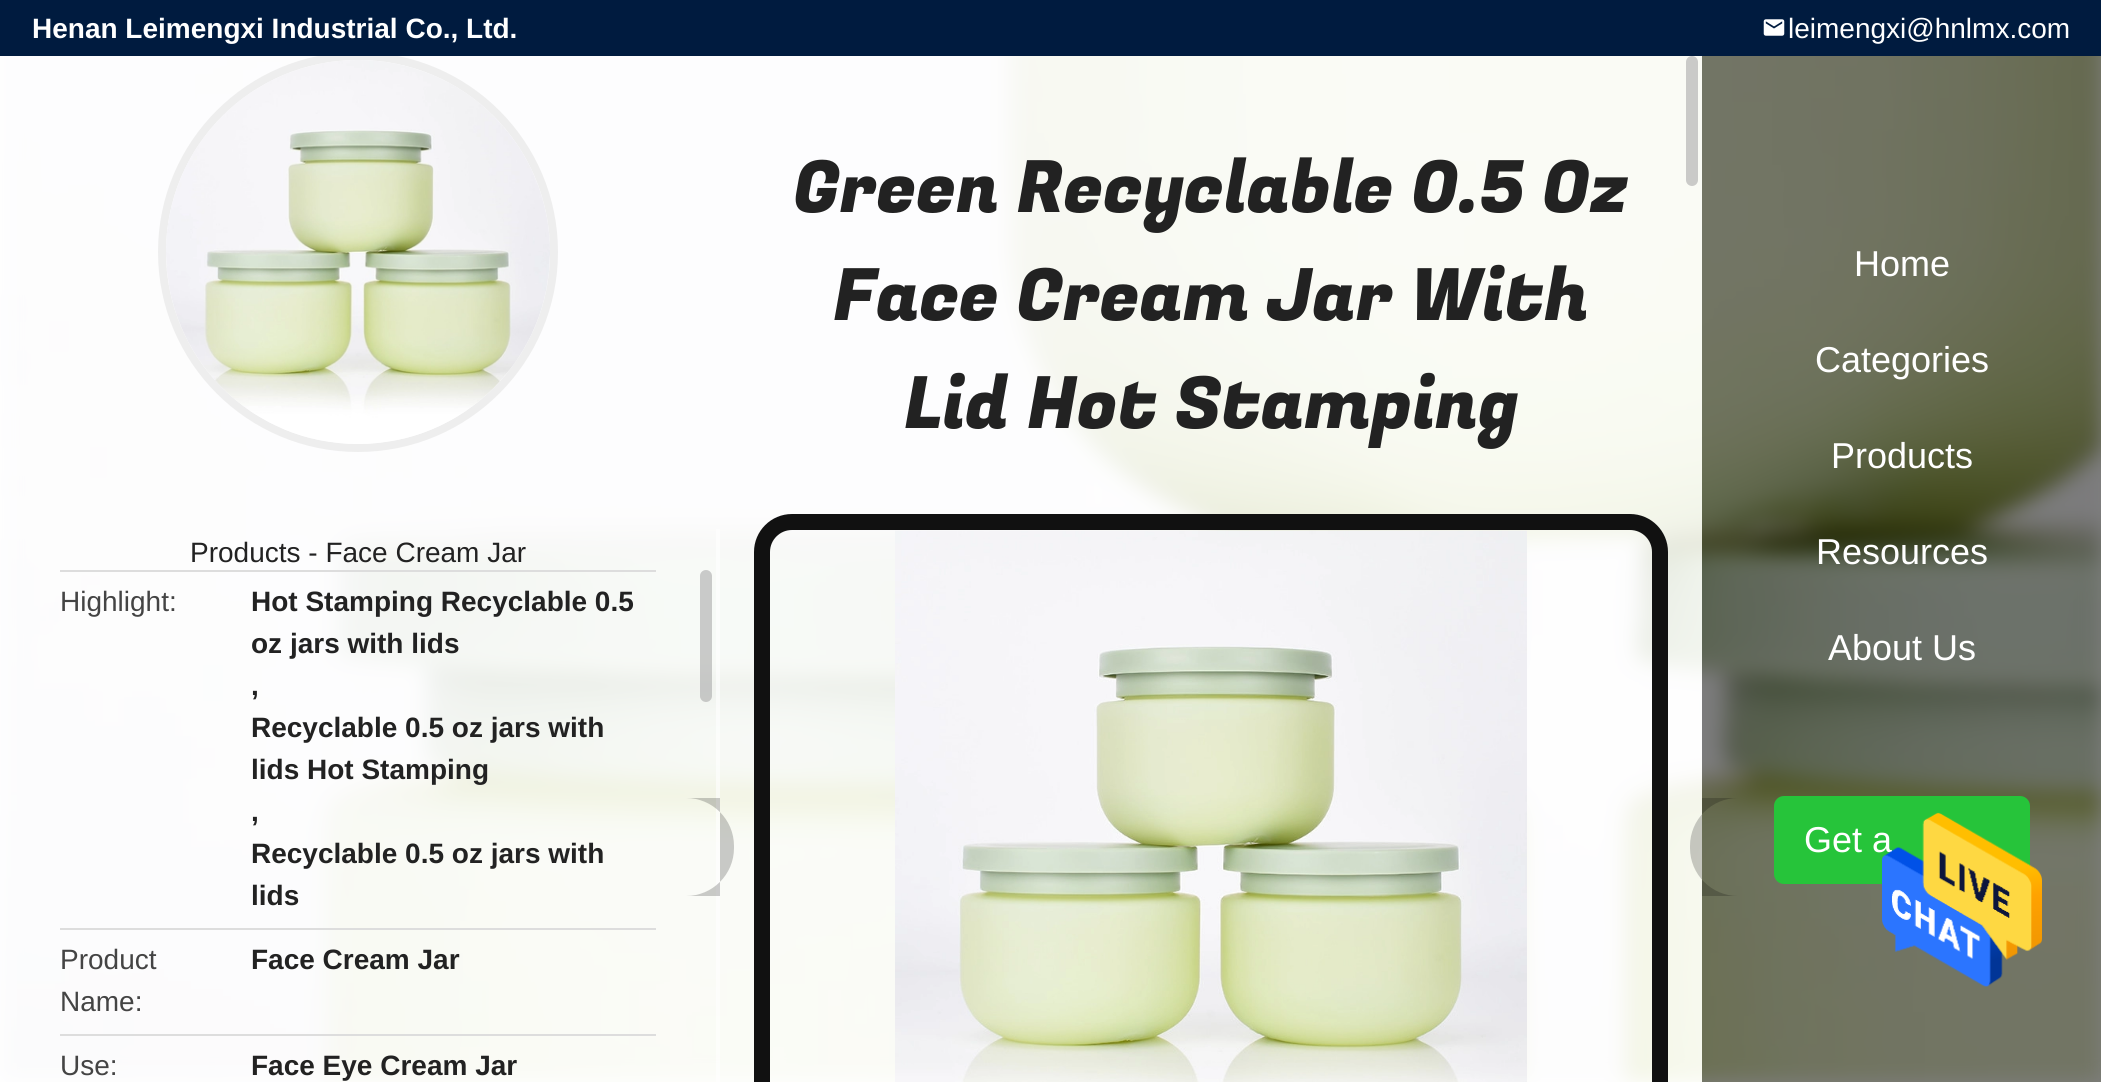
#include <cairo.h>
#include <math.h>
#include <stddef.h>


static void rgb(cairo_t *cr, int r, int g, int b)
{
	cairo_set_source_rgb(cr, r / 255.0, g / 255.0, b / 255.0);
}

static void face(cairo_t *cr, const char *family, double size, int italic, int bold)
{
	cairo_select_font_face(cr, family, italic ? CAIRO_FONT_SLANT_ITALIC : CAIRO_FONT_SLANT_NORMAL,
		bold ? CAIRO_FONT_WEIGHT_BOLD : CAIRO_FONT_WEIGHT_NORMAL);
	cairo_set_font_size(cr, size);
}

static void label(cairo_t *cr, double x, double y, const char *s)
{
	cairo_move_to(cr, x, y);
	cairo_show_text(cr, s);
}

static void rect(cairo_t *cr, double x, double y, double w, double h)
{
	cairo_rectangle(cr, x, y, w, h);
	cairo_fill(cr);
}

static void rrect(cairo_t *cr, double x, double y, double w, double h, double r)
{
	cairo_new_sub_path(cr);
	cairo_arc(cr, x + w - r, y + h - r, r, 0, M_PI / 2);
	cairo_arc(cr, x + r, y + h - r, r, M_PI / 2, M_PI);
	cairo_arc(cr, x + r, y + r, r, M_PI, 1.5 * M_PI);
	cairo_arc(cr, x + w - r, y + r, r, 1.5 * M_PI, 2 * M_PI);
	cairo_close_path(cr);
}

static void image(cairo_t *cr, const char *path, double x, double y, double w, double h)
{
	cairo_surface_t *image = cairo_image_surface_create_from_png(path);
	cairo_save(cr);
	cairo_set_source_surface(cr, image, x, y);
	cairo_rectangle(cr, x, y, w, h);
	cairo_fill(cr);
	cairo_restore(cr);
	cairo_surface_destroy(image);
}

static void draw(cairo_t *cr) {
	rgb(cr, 255, 255, 255);
	cairo_paint(cr);
	image(cr, "image1.png", 0, 56, 2101, 1026);
	cairo_set_source_rgba(cr, 1, 1, 1, 0.8);
	rect(cr, 0, 56, 720, 1026);
	cairo_arc(cr, 358, 252, 196, 0, 2 * M_PI);
	rgb(cr, 238, 238, 238);
	cairo_set_line_width(cr, 8);
	cairo_stroke(cr);
	rgb(cr, 0, 27, 63);
	rect(cr, 0, 0, 2101, 56);
	face(cr, "Liberation Sans", 28, 0, 1);
	rgb(cr, 255, 255, 255);
	label(cr, 32, 38, "Henan Leimengxi Industrial Co., Ltd.");
	image(cr, "image0.png", 1763, 19, 22, 17);
	face(cr, "Liberation Sans", 28, 0, 0);
	label(cr, 1788, 38, "leimengxi@hnlmx.com");
	cairo_set_source_rgba(cr, 1, 1, 1, 0.6);
	rect(cr, 716, 529, 4, 553);
	image(cr, "image2.png", 166, 60, 384, 384);
	rgb(cr, 34, 34, 34);
	label(cr, 190, 562, "Products - Face Cream Jar");
	rgb(cr, 221, 221, 221);
	rect(cr, 60, 570, 596, 2);
	rgb(cr, 68, 68, 68);
	label(cr, 60, 611, "Highlight:");
	face(cr, "Liberation Sans", 28, 0, 1);
	rgb(cr, 34, 34, 34);
	label(cr, 251, 611, "Hot Stamping Recyclable 0.5");
	label(cr, 251, 653, "oz jars with lids");
	label(cr, 251, 695, ",");
	label(cr, 251, 737, "Recyclable 0.5 oz jars with");
	label(cr, 251, 779, "lids Hot Stamping");
	label(cr, 251, 821, ",");
	label(cr, 251, 863, "Recyclable 0.5 oz jars with");
	label(cr, 251, 905, "lids");
	rgb(cr, 221, 221, 221);
	rect(cr, 60, 928, 596, 2);
	face(cr, "Liberation Sans", 28, 0, 0);
	rgb(cr, 68, 68, 68);
	label(cr, 60, 969, "Product");
	label(cr, 60, 1011, "Name:");
	face(cr, "Liberation Sans", 28, 0, 1);
	rgb(cr, 34, 34, 34);
	label(cr, 251, 969, "Face Cream Jar");
	rgb(cr, 221, 221, 221);
	rect(cr, 60, 1034, 596, 2);
	face(cr, "Liberation Sans", 28, 0, 0);
	rgb(cr, 68, 68, 68);
	label(cr, 60, 1075, "Use:");
	face(cr, "Liberation Sans", 28, 0, 1);
	rgb(cr, 34, 34, 34);
	label(cr, 251, 1075, "Face Eye Cream Jar");
	cairo_set_source_rgba(cr, 0.667, 0.667, 0.667, 0.6);
	rrect(cr, 700, 570, 12, 132, 6);
	cairo_fill(cr);
	cairo_set_source_rgba(cr, 1, 1, 1, 0.8);
	rect(cr, 720, 56, 982, 1026);
	rgb(cr, 202, 202, 200);
	rrect(cr, 1686, 56, 12, 130, 6);
	cairo_fill(cr);
	face(cr, "Fugaz One", 72, 0, 0);
	rgb(cr, 34, 34, 34);
	label(cr, 793, 212, "Green Recyclable 0.5 Oz");
	label(cr, 833, 320, "Face Cream Jar With");
	label(cr, 904, 428, "Lid Hot Stamping");
	rrect(cr, 762, 522, 898, 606, 30);
	rgb(cr, 17, 17, 17);
	cairo_set_line_width(cr, 16);
	cairo_stroke(cr);
	image(cr, "image3.png", 895, 530, 632, 552);
	cairo_set_source_rgba(cr, 0, 0, 0, 0.2);
	cairo_new_path(cr);
	cairo_move_to(cr, 720, 798);
	cairo_line_to(cr, 686, 798);
	cairo_curve_to(cr, 712.5, 798, 734, 819.5, 734, 846);
	cairo_line_to(cr, 734, 848);
	cairo_curve_to(cr, 734, 874.5, 712.5, 896, 686, 896);
	cairo_line_to(cr, 720, 896);
	cairo_close_path(cr);
	cairo_fill(cr);
	cairo_new_path(cr);
	cairo_move_to(cr, 1738, 798);
	cairo_line_to(cr, 1702, 798);
	cairo_line_to(cr, 1702, 896);
	cairo_line_to(cr, 1738, 896);
	cairo_curve_to(cr, 1711.5, 896, 1690, 874.5, 1690, 848);
	cairo_line_to(cr, 1690, 846);
	cairo_curve_to(cr, 1690, 819.5, 1711.5, 798, 1738, 798);
	cairo_close_path(cr);
	cairo_fill(cr);
	cairo_set_source_rgba(cr, 0, 0, 0, 0.5);
	rect(cr, 1702, 56, 399, 1026);
	face(cr, "Liberation Sans", 36, 0, 0);
	rgb(cr, 255, 255, 255);
	label(cr, 1854, 276, "Home");
	label(cr, 1815, 372, "Categories");
	label(cr, 1831, 468, "Products");
	label(cr, 1816, 564, "Resources");
	label(cr, 1828, 660, "About Us");
	rgb(cr, 38, 196, 58);
	rrect(cr, 1774, 796, 256, 88, 10);
	cairo_fill(cr);
	rgb(cr, 255, 255, 255);
	label(cr, 1804, 852, "Get a");
	image(cr, "image4.png", 1882, 812, 160, 175);
}

int main(void) {
	cairo_surface_t *surface = cairo_image_surface_create(CAIRO_FORMAT_RGB24, 2101, 1082);
	cairo_t *cr = cairo_create(surface);
	cairo_font_options_t *options = cairo_font_options_create();
	cairo_font_options_set_hint_metrics(options, CAIRO_HINT_METRICS_OFF);
	cairo_font_options_set_hint_style(options, CAIRO_HINT_STYLE_NONE);
	cairo_set_font_options(cr, options);
	cairo_set_miter_limit(cr, 4);
	draw(cr);
	cairo_surface_write_to_png(surface, "render.png");
	cairo_font_options_destroy(options);
	cairo_destroy(cr);
	cairo_surface_destroy(surface);
	return 0;
}
